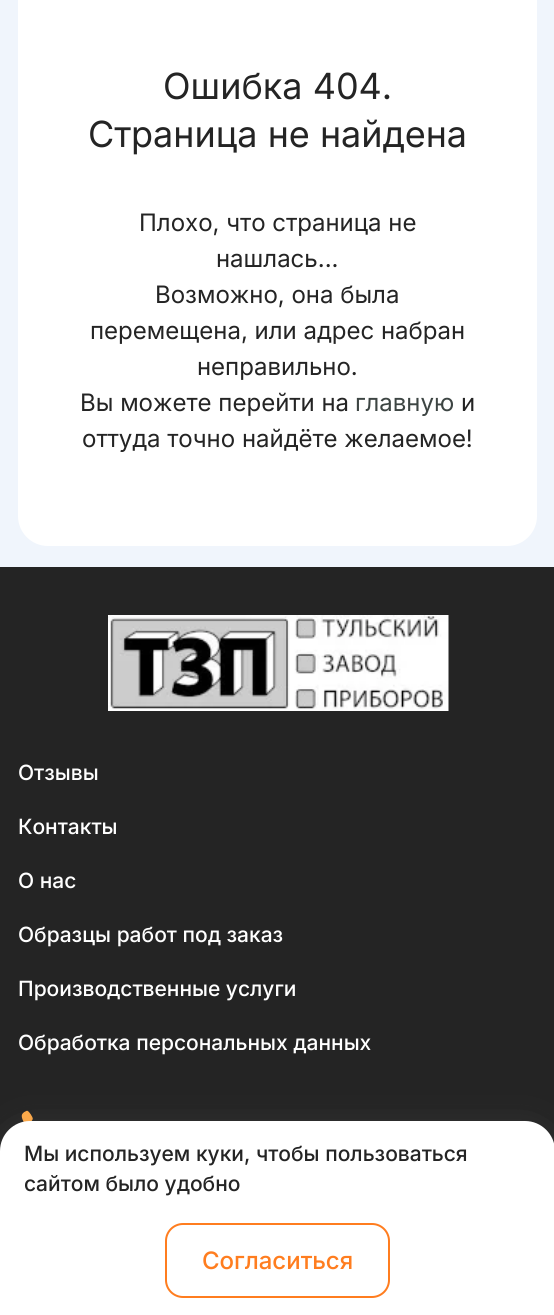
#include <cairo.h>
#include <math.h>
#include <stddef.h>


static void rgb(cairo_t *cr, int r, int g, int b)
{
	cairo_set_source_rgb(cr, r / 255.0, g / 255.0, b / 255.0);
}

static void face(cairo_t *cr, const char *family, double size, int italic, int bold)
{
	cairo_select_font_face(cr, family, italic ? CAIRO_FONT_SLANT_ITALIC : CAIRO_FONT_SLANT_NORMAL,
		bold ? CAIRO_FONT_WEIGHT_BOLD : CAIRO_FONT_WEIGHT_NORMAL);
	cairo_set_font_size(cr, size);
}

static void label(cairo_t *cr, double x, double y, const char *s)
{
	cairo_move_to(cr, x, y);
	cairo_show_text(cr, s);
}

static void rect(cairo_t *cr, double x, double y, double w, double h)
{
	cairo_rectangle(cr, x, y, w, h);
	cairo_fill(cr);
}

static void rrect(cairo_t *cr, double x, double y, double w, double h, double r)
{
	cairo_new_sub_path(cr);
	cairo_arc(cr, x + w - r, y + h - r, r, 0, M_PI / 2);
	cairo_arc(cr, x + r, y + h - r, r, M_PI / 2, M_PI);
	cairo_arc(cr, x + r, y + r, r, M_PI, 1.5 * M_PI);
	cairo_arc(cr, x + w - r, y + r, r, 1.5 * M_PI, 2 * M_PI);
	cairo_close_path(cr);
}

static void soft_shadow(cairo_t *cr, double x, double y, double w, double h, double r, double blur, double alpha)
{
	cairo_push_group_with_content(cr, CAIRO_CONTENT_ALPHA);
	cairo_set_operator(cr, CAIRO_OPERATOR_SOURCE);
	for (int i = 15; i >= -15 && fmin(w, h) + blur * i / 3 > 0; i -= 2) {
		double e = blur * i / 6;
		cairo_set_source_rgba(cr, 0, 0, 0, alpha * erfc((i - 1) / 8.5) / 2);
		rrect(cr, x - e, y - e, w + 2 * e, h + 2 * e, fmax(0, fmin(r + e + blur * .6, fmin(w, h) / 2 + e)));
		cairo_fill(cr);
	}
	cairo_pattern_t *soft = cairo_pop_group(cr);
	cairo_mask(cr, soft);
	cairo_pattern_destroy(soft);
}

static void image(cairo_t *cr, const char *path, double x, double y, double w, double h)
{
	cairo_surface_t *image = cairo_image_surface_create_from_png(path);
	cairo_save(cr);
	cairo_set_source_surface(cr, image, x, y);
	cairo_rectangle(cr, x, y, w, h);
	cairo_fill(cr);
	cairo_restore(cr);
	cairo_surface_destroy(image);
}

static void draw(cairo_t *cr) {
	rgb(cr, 240, 245, 252);
	cairo_paint(cr);
	rgb(cr, 255, 255, 255);
	rrect(cr, 18, -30, 519, 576, 30);
	cairo_fill(cr);
	face(cr, "Inter", 36, 0, 0);
	rgb(cr, 36, 36, 36);
	label(cr, 163, 99, "Ошибка 404.");
	label(cr, 88, 147, "Страница не найдена");
	face(cr, "Inter", 24, 0, 0);
	label(cr, 139, 231, "Плохо, что страница не");
	label(cr, 216, 267, "нашлась...");
	label(cr, 155, 303, "Возможно, она была");
	label(cr, 90, 339, "перемещена, или адрес набран");
	label(cr, 197, 375, "неправильно.");
	label(cr, 80, 411, "Вы можете перейти на");
	rgb(cr, 61, 69, 67);
	label(cr, 355, 411, "главную");
	rgb(cr, 36, 36, 36);
	label(cr, 461, 411, "и");
	label(cr, 82, 447, "оттуда точно найдёте желаемое!");
	rect(cr, 0, 567, 554, 584);
	image(cr, "image0.png", 108, 615, 341, 96);
	face(cr, "Inter Medium", 21, 0, 0);
	rgb(cr, 255, 255, 255);
	label(cr, 18, 780, "Отзывы");
	label(cr, 18, 834, "Контакты");
	label(cr, 18, 888, "О нас");
	label(cr, 18, 942, "Образцы работ под заказ");
	label(cr, 18, 996, "Производственные услуги");
	label(cr, 18, 1050, "Обработка персональных данных");
	image(cr, "image1.png", 21, 1110, 12, 12);
	rgb(cr, 156, 156, 156);
	soft_shadow(cr, 0, 1127, 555, 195, 30, 15, 0.2);
	rgb(cr, 255, 255, 255);
	cairo_new_path(cr);
	cairo_move_to(cr, 30, 1121);
	cairo_line_to(cr, 525, 1121);
	cairo_curve_to(cr, 541.5, 1121, 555, 1134.5, 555, 1151);
	cairo_line_to(cr, 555, 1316);
	cairo_line_to(cr, 0, 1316);
	cairo_line_to(cr, 0, 1151);
	cairo_curve_to(cr, 0, 1134.5, 13.5, 1121, 30, 1121);
	cairo_close_path(cr);
	cairo_fill(cr);
	rgb(cr, 36, 36, 36);
	label(cr, 24, 1161, "Мы используем куки, чтобы пользоваться");
	label(cr, 24, 1191, "сайтом было удобно");
	rrect(cr, 166, 1224, 223, 73, 17);
	rgb(cr, 255, 125, 31);
	cairo_stroke(cr);
	face(cr, "Inter Medium", 24, 0, 0);
	label(cr, 202, 1269, "Согласиться");
}

int main(void) {
	cairo_surface_t *surface = cairo_image_surface_create(CAIRO_FORMAT_RGB24, 554, 1315);
	cairo_t *cr = cairo_create(surface);
	cairo_font_options_t *options = cairo_font_options_create();
	cairo_font_options_set_hint_metrics(options, CAIRO_HINT_METRICS_OFF);
	cairo_font_options_set_hint_style(options, CAIRO_HINT_STYLE_NONE);
	cairo_set_font_options(cr, options);
	cairo_set_miter_limit(cr, 4);
	draw(cr);
	cairo_surface_write_to_png(surface, "render.png");
	cairo_font_options_destroy(options);
	cairo_destroy(cr);
	cairo_surface_destroy(surface);
	return 0;
}
